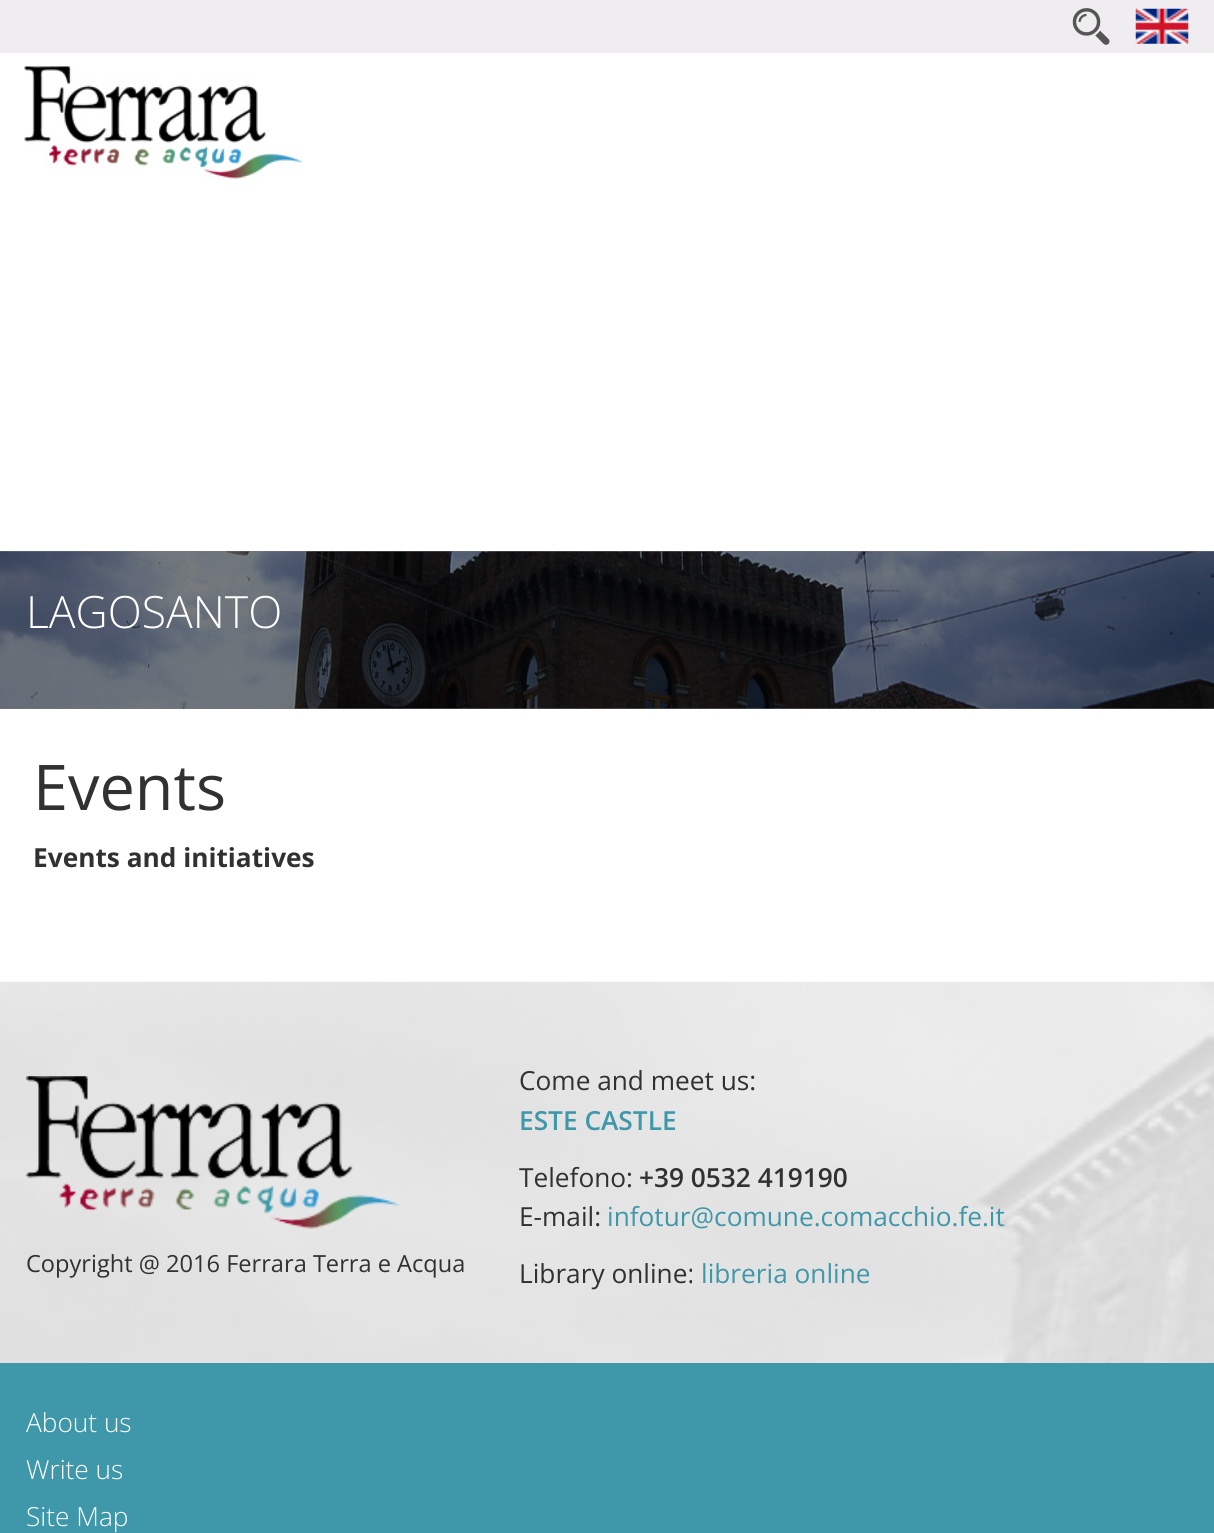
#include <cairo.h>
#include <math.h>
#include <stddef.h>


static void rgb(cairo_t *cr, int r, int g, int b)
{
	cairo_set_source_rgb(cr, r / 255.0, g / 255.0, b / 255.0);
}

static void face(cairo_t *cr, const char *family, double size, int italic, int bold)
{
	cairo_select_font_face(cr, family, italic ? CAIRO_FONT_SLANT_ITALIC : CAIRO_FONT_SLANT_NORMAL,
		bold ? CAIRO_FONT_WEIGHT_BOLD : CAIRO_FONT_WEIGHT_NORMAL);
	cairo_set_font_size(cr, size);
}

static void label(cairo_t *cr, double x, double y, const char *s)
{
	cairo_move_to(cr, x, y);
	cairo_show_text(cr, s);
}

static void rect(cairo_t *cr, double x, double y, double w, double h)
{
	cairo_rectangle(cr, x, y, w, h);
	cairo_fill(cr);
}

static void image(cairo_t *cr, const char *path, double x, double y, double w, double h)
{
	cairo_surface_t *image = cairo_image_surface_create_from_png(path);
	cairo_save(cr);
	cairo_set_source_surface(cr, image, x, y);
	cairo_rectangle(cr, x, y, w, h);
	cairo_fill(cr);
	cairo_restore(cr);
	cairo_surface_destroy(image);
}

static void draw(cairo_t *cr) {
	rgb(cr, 255, 255, 255);
	cairo_paint(cr);
	rgb(cr, 239, 237, 239);
	rect(cr, 0, 0, 1214, 53);
	image(cr, "image0.png", 1135, 8, 54, 36);
	image(cr, "image1.png", 1072, 8, 38, 37);
	image(cr, "image2.png", 24, 66, 279, 113);
	rgb(cr, 120, 119, 120);
	rect(cr, 0, 551, 1214, 158);
	image(cr, "image3.png", 0, 551, 1214, 158);
	face(cr, "Open Sans Light", 44.5, 0, 0);
	rgb(cr, 255, 255, 255);
	label(cr, 26, 628, "LAGOSANTO");
	face(cr, "Open Sans", 63, 0, 0);
	rgb(cr, 49, 49, 49);
	label(cr, 33, 810, "Events");
	face(cr, "Open Sans", 26.25, 0, 1);
	label(cr, 33, 867, "Events and initiatives");
	image(cr, "image4.png", 0, 981, 1214, 382);
	image(cr, "image5.png", 26, 1076, 374, 153);
	face(cr, "Open Sans", 23.6, 0, 0);
	label(cr, 26, 1272, "Copyright @ 2016 Ferrara Terra e Acqua");
	face(cr, "Open Sans", 26.25, 0, 0);
	label(cr, 519, 1090, "Come and meet us:");
	face(cr, "Open Sans SemiBold", 26.25, 0, 0);
	rgb(cr, 63, 151, 170);
	label(cr, 519, 1130, "ESTE CASTLE");
	face(cr, "Open Sans", 26.25, 0, 0);
	rgb(cr, 49, 49, 49);
	label(cr, 519, 1187, "Telefono:");
	face(cr, "Open Sans SemiBold", 26.25, 0, 0);
	label(cr, 639, 1187, "+39 0532 419190");
	face(cr, "Open Sans", 26.25, 0, 0);
	label(cr, 519, 1226, "E-mail:");
	rgb(cr, 63, 151, 170);
	label(cr, 607, 1226, "infotur@comune.comacchio.fe.it");
	rgb(cr, 49, 49, 49);
	label(cr, 519, 1283, "Library online:");
	rgb(cr, 63, 151, 170);
	label(cr, 701, 1283, "libreria online");
	rect(cr, 0, 1363, 1214, 170);
	face(cr, "Open Sans Light", 26.25, 0, 0);
	rgb(cr, 255, 255, 255);
	label(cr, 26, 1432, "About us");
	label(cr, 26, 1479, "Write us");
	label(cr, 26, 1526, "Site Map");
}

int main(void) {
	cairo_surface_t *surface = cairo_image_surface_create(CAIRO_FORMAT_RGB24, 1214, 1533);
	cairo_t *cr = cairo_create(surface);
	cairo_font_options_t *options = cairo_font_options_create();
	cairo_font_options_set_hint_metrics(options, CAIRO_HINT_METRICS_OFF);
	cairo_font_options_set_hint_style(options, CAIRO_HINT_STYLE_NONE);
	cairo_set_font_options(cr, options);
	cairo_set_miter_limit(cr, 4);
	draw(cr);
	cairo_surface_write_to_png(surface, "render.png");
	cairo_font_options_destroy(options);
	cairo_destroy(cr);
	cairo_surface_destroy(surface);
	return 0;
}
